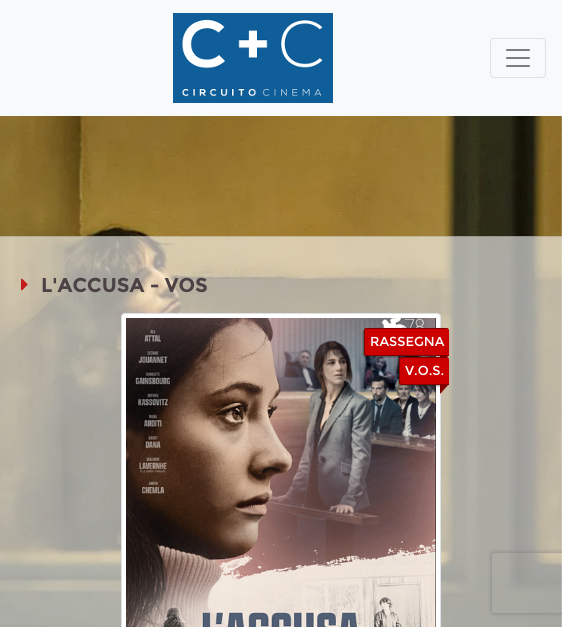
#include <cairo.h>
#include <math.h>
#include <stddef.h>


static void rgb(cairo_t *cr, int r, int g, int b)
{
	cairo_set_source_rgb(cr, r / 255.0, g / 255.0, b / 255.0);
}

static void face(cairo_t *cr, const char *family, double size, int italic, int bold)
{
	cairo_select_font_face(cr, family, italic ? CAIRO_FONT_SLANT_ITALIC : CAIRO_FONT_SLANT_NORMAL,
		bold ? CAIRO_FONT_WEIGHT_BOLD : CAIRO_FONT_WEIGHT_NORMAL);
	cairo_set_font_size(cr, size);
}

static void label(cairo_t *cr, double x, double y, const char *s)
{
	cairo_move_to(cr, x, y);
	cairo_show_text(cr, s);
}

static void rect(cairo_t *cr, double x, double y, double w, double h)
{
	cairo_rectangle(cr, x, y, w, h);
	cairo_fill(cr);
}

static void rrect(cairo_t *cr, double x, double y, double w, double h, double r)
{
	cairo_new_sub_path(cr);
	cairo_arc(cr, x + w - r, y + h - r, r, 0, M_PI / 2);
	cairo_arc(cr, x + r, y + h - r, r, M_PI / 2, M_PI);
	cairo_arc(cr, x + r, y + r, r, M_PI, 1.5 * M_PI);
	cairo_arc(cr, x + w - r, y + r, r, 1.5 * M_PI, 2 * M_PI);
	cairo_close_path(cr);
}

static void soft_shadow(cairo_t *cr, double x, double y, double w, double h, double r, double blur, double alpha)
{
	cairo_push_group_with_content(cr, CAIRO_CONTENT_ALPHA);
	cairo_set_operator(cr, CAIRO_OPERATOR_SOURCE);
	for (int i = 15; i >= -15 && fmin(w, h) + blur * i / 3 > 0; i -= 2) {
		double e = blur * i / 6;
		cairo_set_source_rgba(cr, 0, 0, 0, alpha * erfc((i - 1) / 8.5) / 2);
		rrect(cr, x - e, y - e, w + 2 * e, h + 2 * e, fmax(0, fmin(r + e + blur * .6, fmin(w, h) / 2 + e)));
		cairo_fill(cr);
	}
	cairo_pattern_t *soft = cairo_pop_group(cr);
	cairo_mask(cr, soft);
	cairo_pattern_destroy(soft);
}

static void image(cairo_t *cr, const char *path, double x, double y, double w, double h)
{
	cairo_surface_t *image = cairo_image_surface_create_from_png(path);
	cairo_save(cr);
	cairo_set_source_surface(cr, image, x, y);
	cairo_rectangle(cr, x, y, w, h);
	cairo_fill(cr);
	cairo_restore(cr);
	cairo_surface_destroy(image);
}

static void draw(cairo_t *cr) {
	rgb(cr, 255, 255, 255);
	cairo_paint(cr);
	rgb(cr, 248, 249, 250);
	rect(cr, 0, 0, 562, 116);
	image(cr, "image0.png", 173, 13, 160, 90);
	rrect(cr, 490.5, 38.5, 55, 39, 3.5);
	rgb(cr, 223, 224, 225);
	cairo_set_line_width(cr, 1);
	cairo_stroke(cr);
	image(cr, "image1.png", 506, 49, 24, 18);
	image(cr, "image2.png", 0, 116, 562, 511);
	cairo_set_source_rgba(cr, 1, 1, 1, 0.6);
	rect(cr, 0, 236, 562, 391);
	cairo_rectangle(cr, -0.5, 236.5, 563, 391);
	cairo_set_source_rgba(cr, 0, 0, 0, 0.12);
	cairo_stroke(cr);
	image(cr, "image3.png", 21, 278, 7, 13);
	face(cr, "Montserrat", 20, 0, 1);
	rgb(cr, 76, 65, 69);
	label(cr, 41, 292, "L'ACCUSA - VOS");
	rgb(cr, 255, 255, 255);
	rrect(cr, 121.5, 313.5, 319, 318, 3.5);
	cairo_fill_preserve(cr);
	rgb(cr, 222, 226, 230);
	cairo_stroke(cr);
	image(cr, "image4.png", 126, 318, 310, 309);
	rgb(cr, 0, 0, 0);
	soft_shadow(cr, 363, 329, 85, 28, 3, 1, 0.4);
	rgb(cr, 204, 0, 0);
	cairo_new_path(cr);
	cairo_move_to(cr, 367, 328);
	cairo_line_to(cr, 446, 328);
	cairo_curve_to(cr, 447.5, 328, 449, 329.5, 449, 331);
	cairo_line_to(cr, 449, 356);
	cairo_line_to(cr, 367, 356);
	cairo_curve_to(cr, 365.5, 356, 364, 354.5, 364, 353);
	cairo_line_to(cr, 364, 331);
	cairo_curve_to(cr, 364, 329.5, 365.5, 328, 367, 328);
	cairo_close_path(cr);
	cairo_fill(cr);
	rgb(cr, 128, 0, 0);
	cairo_set_fill_rule(cr, CAIRO_FILL_RULE_EVEN_ODD);
	cairo_new_path(cr);
	cairo_move_to(cr, 367, 328);
	cairo_line_to(cr, 446, 328);
	cairo_curve_to(cr, 448, 328, 449, 329, 449, 331);
	cairo_line_to(cr, 449, 356);
	cairo_line_to(cr, 367, 356);
	cairo_curve_to(cr, 365, 356, 364, 355, 364, 353);
	cairo_line_to(cr, 364, 331);
	cairo_curve_to(cr, 364, 329, 365, 328, 367, 328);
	cairo_close_path(cr);
	cairo_move_to(cr, 367, 329);
	cairo_line_to(cr, 446, 329);
	cairo_curve_to(cr, 448, 329, 449, 330, 449, 331);
	cairo_line_to(cr, 449, 355);
	cairo_line_to(cr, 367, 355);
	cairo_curve_to(cr, 366, 355, 365, 354, 365, 353);
	cairo_line_to(cr, 365, 331);
	cairo_curve_to(cr, 365, 330, 366, 329, 367, 329);
	cairo_close_path(cr);
	cairo_fill(cr);
	face(cr, "Montserrat", 13, 0, 0);
	rgb(cr, 255, 255, 255);
	label(cr, 370, 346, "RASSEGNA");
	rgb(cr, 128, 0, 0);
	cairo_set_fill_rule(cr, CAIRO_FILL_RULE_WINDING);
	cairo_new_path(cr);
	cairo_move_to(cr, 440, 365);
	cairo_line_to(cr, 440, 355);
	cairo_line_to(cr, 449, 355);
	cairo_close_path(cr);
	cairo_fill(cr);
	rgb(cr, 0, 0, 0);
	soft_shadow(cr, 398, 358, 50, 28, 3, 1, 0.4);
	rgb(cr, 204, 0, 0);
	cairo_new_path(cr);
	cairo_move_to(cr, 402, 357);
	cairo_line_to(cr, 446, 357);
	cairo_curve_to(cr, 447.5, 357, 449, 358.5, 449, 360);
	cairo_line_to(cr, 449, 385);
	cairo_line_to(cr, 402, 385);
	cairo_curve_to(cr, 400.5, 385, 399, 383.5, 399, 382);
	cairo_line_to(cr, 399, 360);
	cairo_curve_to(cr, 399, 358.5, 400.5, 357, 402, 357);
	cairo_close_path(cr);
	cairo_fill(cr);
	rgb(cr, 128, 0, 0);
	cairo_set_fill_rule(cr, CAIRO_FILL_RULE_EVEN_ODD);
	cairo_new_path(cr);
	cairo_move_to(cr, 402, 357);
	cairo_line_to(cr, 446, 357);
	cairo_curve_to(cr, 448, 357, 449, 358, 449, 360);
	cairo_line_to(cr, 449, 385);
	cairo_line_to(cr, 402, 385);
	cairo_curve_to(cr, 400, 385, 399, 384, 399, 382);
	cairo_line_to(cr, 399, 360);
	cairo_curve_to(cr, 399, 358, 400, 357, 402, 357);
	cairo_close_path(cr);
	cairo_move_to(cr, 402, 358);
	cairo_line_to(cr, 446, 358);
	cairo_curve_to(cr, 448, 358, 449, 359, 449, 360);
	cairo_line_to(cr, 449, 384);
	cairo_line_to(cr, 402, 384);
	cairo_curve_to(cr, 401, 384, 400, 383, 400, 382);
	cairo_line_to(cr, 400, 360);
	cairo_curve_to(cr, 400, 359, 401, 358, 402, 358);
	cairo_close_path(cr);
	cairo_fill(cr);
	rgb(cr, 255, 255, 255);
	label(cr, 405, 375, "V.O.S.");
	rgb(cr, 128, 0, 0);
	cairo_set_fill_rule(cr, CAIRO_FILL_RULE_WINDING);
	cairo_new_path(cr);
	cairo_move_to(cr, 440, 394);
	cairo_line_to(cr, 440, 384);
	cairo_line_to(cr, 449, 384);
	cairo_close_path(cr);
	cairo_fill(cr);
	cairo_save(cr);
	cairo_set_fill_rule(cr, CAIRO_FILL_RULE_EVEN_ODD);
	cairo_new_path(cr);
	cairo_move_to(cr, 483, 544);
	cairo_line_to(cr, 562, 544);
	cairo_line_to(cr, 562, 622);
	cairo_line_to(cr, 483, 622);
	cairo_close_path(cr);
	cairo_move_to(cr, 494, 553);
	cairo_line_to(cr, 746, 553);
	cairo_curve_to(cr, 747, 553, 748, 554, 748, 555);
	cairo_line_to(cr, 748, 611);
	cairo_curve_to(cr, 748, 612, 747, 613, 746, 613);
	cairo_line_to(cr, 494, 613);
	cairo_curve_to(cr, 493, 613, 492, 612, 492, 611);
	cairo_line_to(cr, 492, 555);
	cairo_curve_to(cr, 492, 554, 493, 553, 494, 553);
	cairo_close_path(cr);
	cairo_clip(cr);
	rgb(cr, 128, 128, 128);
	soft_shadow(cr, 492, 553, 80, 60, 2, 2.5, 1);
	cairo_restore(cr);
}

int main(void) {
	cairo_surface_t *surface = cairo_image_surface_create(CAIRO_FORMAT_RGB24, 562, 627);
	cairo_t *cr = cairo_create(surface);
	cairo_font_options_t *options = cairo_font_options_create();
	cairo_font_options_set_hint_metrics(options, CAIRO_HINT_METRICS_OFF);
	cairo_font_options_set_hint_style(options, CAIRO_HINT_STYLE_NONE);
	cairo_set_font_options(cr, options);
	cairo_set_miter_limit(cr, 4);
	draw(cr);
	cairo_surface_write_to_png(surface, "render.png");
	cairo_font_options_destroy(options);
	cairo_destroy(cr);
	cairo_surface_destroy(surface);
	return 0;
}
